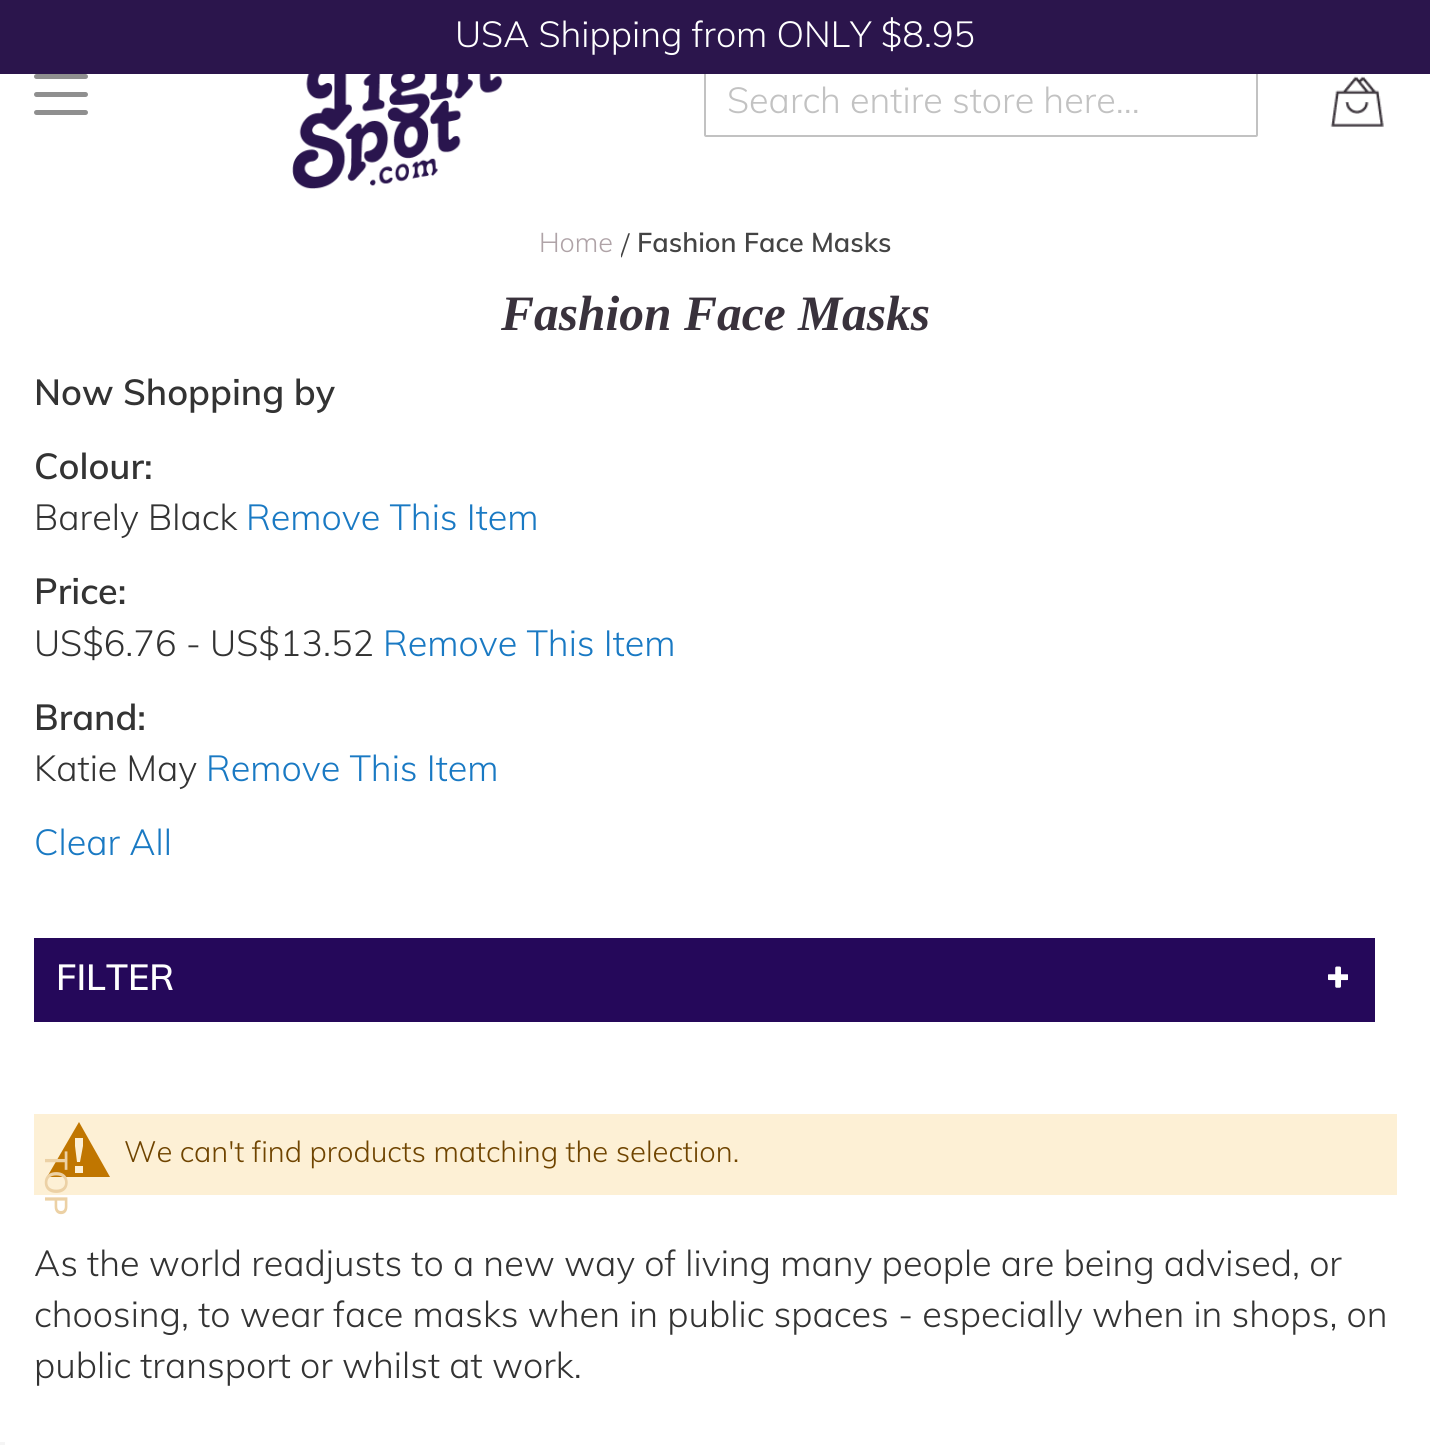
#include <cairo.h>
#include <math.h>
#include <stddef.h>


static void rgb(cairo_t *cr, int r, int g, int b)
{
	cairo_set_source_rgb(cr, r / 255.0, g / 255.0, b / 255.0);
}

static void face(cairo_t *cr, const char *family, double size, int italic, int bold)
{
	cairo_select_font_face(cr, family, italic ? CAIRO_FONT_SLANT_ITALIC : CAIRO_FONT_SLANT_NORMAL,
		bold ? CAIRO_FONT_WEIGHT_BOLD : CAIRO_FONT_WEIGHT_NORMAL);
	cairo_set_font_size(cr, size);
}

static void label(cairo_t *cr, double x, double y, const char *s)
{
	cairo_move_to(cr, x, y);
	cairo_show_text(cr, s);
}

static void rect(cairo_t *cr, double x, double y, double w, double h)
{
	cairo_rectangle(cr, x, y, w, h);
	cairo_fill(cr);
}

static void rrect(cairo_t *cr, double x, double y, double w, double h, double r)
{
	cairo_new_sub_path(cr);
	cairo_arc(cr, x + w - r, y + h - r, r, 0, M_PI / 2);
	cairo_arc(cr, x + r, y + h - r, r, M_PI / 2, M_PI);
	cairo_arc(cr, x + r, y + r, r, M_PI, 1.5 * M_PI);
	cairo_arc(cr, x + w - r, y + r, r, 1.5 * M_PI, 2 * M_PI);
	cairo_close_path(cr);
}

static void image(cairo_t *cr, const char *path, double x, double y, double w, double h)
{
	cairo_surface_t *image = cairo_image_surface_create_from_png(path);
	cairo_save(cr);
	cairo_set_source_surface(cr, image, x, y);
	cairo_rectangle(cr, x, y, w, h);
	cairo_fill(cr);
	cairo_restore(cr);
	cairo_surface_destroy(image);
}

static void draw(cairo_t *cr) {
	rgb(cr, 255, 255, 255);
	cairo_paint(cr);
	rrect(cr, 705, 66, 552, 70, 1);
	rgb(cr, 194, 194, 194);
	cairo_stroke(cr);
	rgb(cr, 43, 21, 76);
	rect(cr, 0, 0, 1430, 74);
	face(cr, "Muli Light", 36, 0, 0);
	rgb(cr, 255, 255, 255);
	label(cr, 455, 47, "USA Shipping from ONLY $8.95");
	rgb(cr, 143, 143, 143);
	rrect(cr, 34, 74, 54, 5, 2.5);
	cairo_fill(cr);
	rrect(cr, 34, 92, 54, 5, 2.5);
	cairo_fill(cr);
	rrect(cr, 34, 110, 54, 5, 2.5);
	cairo_fill(cr);
	image(cr, "image0.png", 292, 74, 211, 115);
	rgb(cr, 194, 194, 194);
	label(cr, 727, 113, "Search entire store here...");
	image(cr, "image1.png", 1330, 76, 54, 51);
	face(cr, "Muli Light", 27, 0, 0);
	rgb(cr, 175, 163, 167);
	label(cr, 539, 252, "Home");
	cairo_save(cr);
	cairo_rectangle(cr, 621, 221, 9, 40);
	cairo_clip(cr);
	face(cr, "Liberation Serif", 36, 0, 0);
	rgb(cr, 68, 68, 68);
	label(cr, 620, 257, "/");
	cairo_restore(cr);
	face(cr, "Muli SemiBold", 27, 0, 0);
	rgb(cr, 68, 68, 68);
	label(cr, 637, 252, "Fashion Face Masks");
	face(cr, "Liberation Serif", 49.5, 1, 1);
	rgb(cr, 57, 50, 60);
	label(cr, 501, 330, "Fashion Face Masks");
	face(cr, "Muli SemiBold", 36, 0, 0);
	rgb(cr, 51, 51, 51);
	label(cr, 34, 405, "Now Shopping by");
	label(cr, 34, 479, "Colour:");
	face(cr, "Muli Light", 36, 0, 0);
	label(cr, 34, 530, "Barely Black");
	rgb(cr, 25, 121, 195);
	label(cr, 246, 530, "Remove This Item");
	face(cr, "Muli SemiBold", 36, 0, 0);
	rgb(cr, 51, 51, 51);
	label(cr, 34, 604, "Price:");
	face(cr, "Muli Light", 36, 0, 0);
	label(cr, 34, 656, "US$6.76 - US$13.52");
	rgb(cr, 25, 121, 195);
	label(cr, 383, 656, "Remove This Item");
	face(cr, "Muli SemiBold", 36, 0, 0);
	rgb(cr, 51, 51, 51);
	label(cr, 34, 730, "Brand:");
	face(cr, "Muli Light", 36, 0, 0);
	label(cr, 34, 781, "Katie May");
	rgb(cr, 25, 121, 195);
	label(cr, 206, 781, "Remove This Item");
	label(cr, 34, 855, "Clear All");
	rgb(cr, 37, 8, 90);
	rect(cr, 34, 938, 1341, 84);
	face(cr, "Muli SemiBold", 36, 0, 0);
	rgb(cr, 255, 255, 255);
	label(cr, 56, 990, "FILTER");
	image(cr, "image2.png", 1328, 966, 20, 22);
	rgb(cr, 253, 240, 213);
	rect(cr, 34, 1114, 1363, 81);
	rgb(cr, 192, 118, 0);
	cairo_new_path(cr);
	cairo_move_to(cr, 79, 1122);
	cairo_line_to(cr, 47, 1177);
	cairo_line_to(cr, 110, 1177);
	cairo_close_path(cr);
	cairo_move_to(cr, 83, 1138);
	cairo_line_to(cr, 83, 1146);
	cairo_line_to(cr, 80, 1162);
	cairo_line_to(cr, 77, 1162);
	cairo_line_to(cr, 75, 1146);
	cairo_line_to(cr, 75, 1138);
	cairo_close_path(cr);
	cairo_move_to(cr, 75, 1173);
	cairo_line_to(cr, 75, 1166);
	cairo_line_to(cr, 83, 1166);
	cairo_line_to(cr, 83, 1173);
	cairo_close_path(cr);
	cairo_fill(cr);
	face(cr, "Muli Light", 29.25, 0, 0);
	rgb(cr, 111, 68, 0);
	label(cr, 124, 1162, "We can't find products matching the selection.");
	face(cr, "Muli Light", 36, 0, 0);
	rgb(cr, 51, 51, 51);
	label(cr, 34, 1276, "As the world readjusts to a new way of living many people are being advised, or");
	label(cr, 34, 1327, "choosing, to wear face masks when in public spaces - especially when in shops, on");
	label(cr, 34, 1378, "public transport or whilst at work.");
	face(cr, "Muli SemiBold", 31.5, 0, 0);
	rgb(cr, 236, 209, 165);
	cairo_save(cr);
	cairo_translate(cr, 45, 1151);
	cairo_rotate(cr, 90 * M_PI / 180);
	label(cr, 0, 0, "TOP");
	cairo_restore(cr);
	rgb(cr, 245, 245, 245);
	rect(cr, 0, 1442, 5, 3);
}

int main(void) {
	cairo_surface_t *surface = cairo_image_surface_create(CAIRO_FORMAT_RGB24, 1430, 1445);
	cairo_t *cr = cairo_create(surface);
	cairo_font_options_t *options = cairo_font_options_create();
	cairo_font_options_set_hint_metrics(options, CAIRO_HINT_METRICS_OFF);
	cairo_font_options_set_hint_style(options, CAIRO_HINT_STYLE_NONE);
	cairo_set_font_options(cr, options);
	cairo_set_miter_limit(cr, 4);
	draw(cr);
	cairo_surface_write_to_png(surface, "render.png");
	cairo_font_options_destroy(options);
	cairo_destroy(cr);
	cairo_surface_destroy(surface);
	return 0;
}
